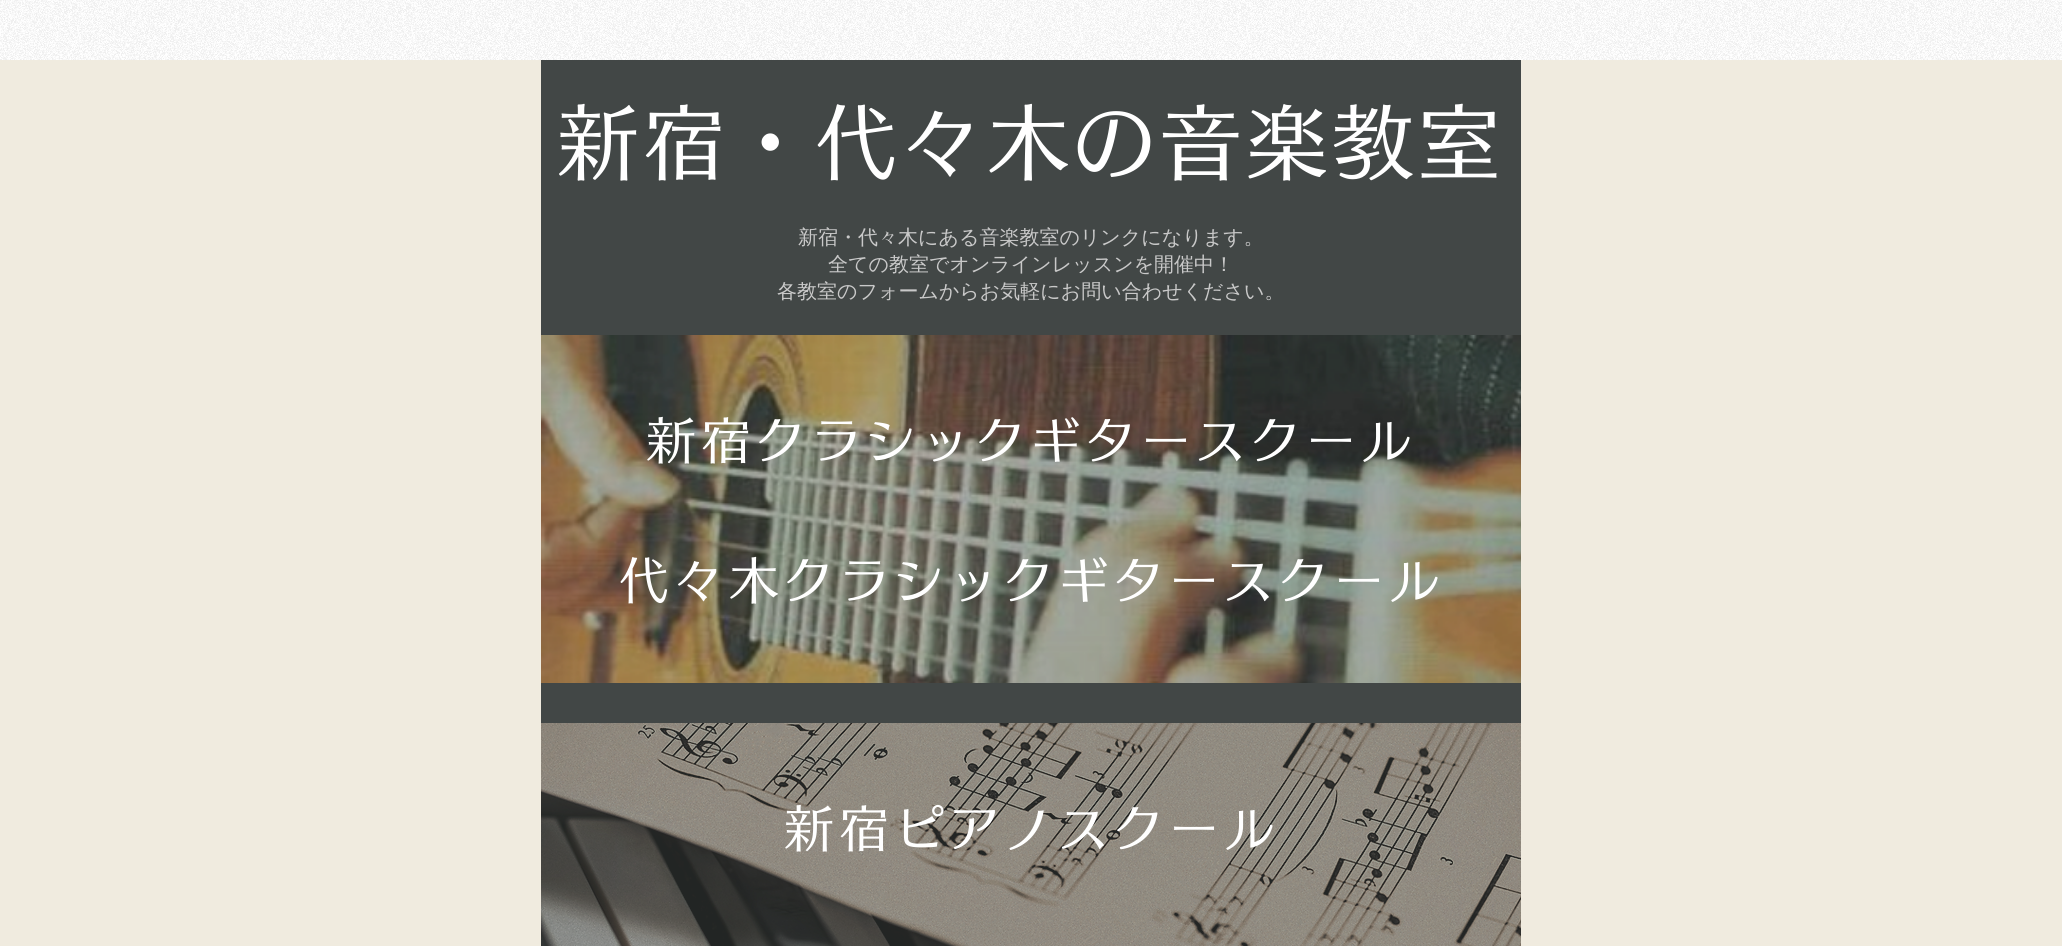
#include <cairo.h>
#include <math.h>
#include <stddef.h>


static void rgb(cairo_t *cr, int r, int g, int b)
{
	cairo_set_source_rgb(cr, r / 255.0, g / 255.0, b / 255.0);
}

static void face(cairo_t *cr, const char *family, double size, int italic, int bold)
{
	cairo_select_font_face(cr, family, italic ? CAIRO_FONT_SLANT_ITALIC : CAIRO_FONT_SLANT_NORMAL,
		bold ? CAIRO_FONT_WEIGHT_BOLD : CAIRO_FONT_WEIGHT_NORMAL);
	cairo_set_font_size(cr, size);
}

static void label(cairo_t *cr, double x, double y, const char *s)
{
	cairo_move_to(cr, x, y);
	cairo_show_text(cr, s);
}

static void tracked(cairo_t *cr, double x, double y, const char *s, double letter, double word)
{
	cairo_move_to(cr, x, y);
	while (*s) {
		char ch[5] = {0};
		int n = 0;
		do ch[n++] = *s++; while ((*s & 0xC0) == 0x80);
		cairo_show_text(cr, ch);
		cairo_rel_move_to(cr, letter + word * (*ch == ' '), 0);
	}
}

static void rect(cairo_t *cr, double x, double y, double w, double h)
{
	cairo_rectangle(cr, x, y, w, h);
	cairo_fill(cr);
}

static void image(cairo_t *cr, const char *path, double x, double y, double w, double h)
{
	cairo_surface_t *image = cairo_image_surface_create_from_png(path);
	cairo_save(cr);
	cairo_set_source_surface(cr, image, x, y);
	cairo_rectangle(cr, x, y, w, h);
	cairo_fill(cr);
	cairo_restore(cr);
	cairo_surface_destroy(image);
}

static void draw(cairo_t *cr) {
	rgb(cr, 240, 235, 223);
	cairo_paint(cr);
	rgb(cr, 255, 255, 255);
	rect(cr, 0, 0, 2062, 60);
	image(cr, "image0.png", 0, 0, 2062, 60);
	rgb(cr, 66, 71, 70);
	rect(cr, 541, 60, 980, 886);
	face(cr, "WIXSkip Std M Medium", 82, 0, 0);
	rgb(cr, 255, 255, 255);
	tracked(cr, 557, 173, "新宿・代々木の音楽教室", 4.1, 0);
	face(cr, "WenQuanYi Zen Hei Medium", 20, 0, 0);
	rgb(cr, 201, 201, 201);
	label(cr, 798, 244, "新宿・代々木にある音楽教室のリンクになります。");
	label(cr, 828, 271, "全ての教室でオンラインレッスンを開催中！");
	label(cr, 777, 298, "各教室のフォームからお気軽にお問い合わせください。");
	image(cr, "image1.png", 541, 335, 980, 348);
	face(cr, "WIXSkip Std M Medium", 50, 0, 0);
	rgb(cr, 255, 255, 255);
	tracked(cr, 646, 459, "新宿クラシックギタースクール", 5, 0);
	tracked(cr, 619, 599, "代々木クラシックギタースクール", 5, 0);
	image(cr, "image2.png", 541, 723, 980, 223);
	tracked(cr, 784, 847, "新宿ピアノスクール", 5, 0);
}

int main(void) {
	cairo_surface_t *surface = cairo_image_surface_create(CAIRO_FORMAT_RGB24, 2062, 946);
	cairo_t *cr = cairo_create(surface);
	cairo_font_options_t *options = cairo_font_options_create();
	cairo_font_options_set_hint_metrics(options, CAIRO_HINT_METRICS_OFF);
	cairo_font_options_set_hint_style(options, CAIRO_HINT_STYLE_NONE);
	cairo_set_font_options(cr, options);
	cairo_set_miter_limit(cr, 4);
	draw(cr);
	cairo_surface_write_to_png(surface, "render.png");
	cairo_font_options_destroy(options);
	cairo_destroy(cr);
	cairo_surface_destroy(surface);
	return 0;
}
